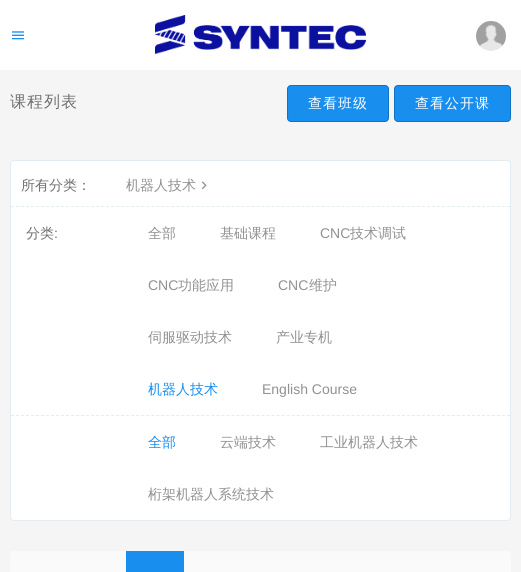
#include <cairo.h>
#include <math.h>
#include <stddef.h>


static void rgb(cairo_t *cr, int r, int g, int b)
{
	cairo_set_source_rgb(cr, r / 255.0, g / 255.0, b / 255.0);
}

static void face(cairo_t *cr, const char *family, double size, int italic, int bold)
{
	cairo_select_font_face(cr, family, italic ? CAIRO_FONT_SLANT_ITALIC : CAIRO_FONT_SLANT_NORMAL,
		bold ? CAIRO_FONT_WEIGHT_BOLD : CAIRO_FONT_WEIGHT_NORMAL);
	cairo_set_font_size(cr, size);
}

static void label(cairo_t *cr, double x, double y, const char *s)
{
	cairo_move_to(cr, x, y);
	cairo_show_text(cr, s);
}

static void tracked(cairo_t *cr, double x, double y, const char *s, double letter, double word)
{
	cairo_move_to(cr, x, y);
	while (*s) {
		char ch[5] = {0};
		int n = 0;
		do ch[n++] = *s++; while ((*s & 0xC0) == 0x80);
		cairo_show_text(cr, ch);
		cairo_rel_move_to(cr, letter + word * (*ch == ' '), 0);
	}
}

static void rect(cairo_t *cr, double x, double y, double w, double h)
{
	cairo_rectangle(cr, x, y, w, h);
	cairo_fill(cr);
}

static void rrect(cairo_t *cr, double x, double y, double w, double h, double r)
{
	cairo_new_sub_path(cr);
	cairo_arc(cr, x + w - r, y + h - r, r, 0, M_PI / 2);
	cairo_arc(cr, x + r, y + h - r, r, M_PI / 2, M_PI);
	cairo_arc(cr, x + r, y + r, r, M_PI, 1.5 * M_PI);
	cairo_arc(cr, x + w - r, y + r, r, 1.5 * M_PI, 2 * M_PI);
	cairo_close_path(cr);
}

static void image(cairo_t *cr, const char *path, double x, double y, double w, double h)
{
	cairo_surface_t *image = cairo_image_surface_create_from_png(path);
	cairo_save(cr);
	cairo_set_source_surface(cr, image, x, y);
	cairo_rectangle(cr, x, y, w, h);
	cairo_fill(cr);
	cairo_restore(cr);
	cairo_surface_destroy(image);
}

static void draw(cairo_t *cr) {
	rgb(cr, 245, 245, 245);
	cairo_paint(cr);
	rgb(cr, 255, 255, 255);
	rect(cr, 0, 0, 521, 70);
	image(cr, "image0.png", 12, 31, 12, 9);
	image(cr, "image1.png", 155, 15, 211, 40);
	image(cr, "image2.png", 476, 21, 30, 30);
	face(cr, "WenQuanYi Zen Hei Medium", 16, 0, 0);
	rgb(cr, 112, 112, 112);
	tracked(cr, 10, 107, "课程列表", 1, 0);
	rgb(cr, 24, 142, 238);
	rrect(cr, 287.5, 85.5, 101, 36, 3.5);
	cairo_fill_preserve(cr);
	rgb(cr, 14, 115, 197);
	cairo_set_line_width(cr, 1);
	cairo_stroke(cr);
	face(cr, "WenQuanYi Zen Hei Medium", 14, 0, 0);
	rgb(cr, 255, 255, 255);
	tracked(cr, 308, 108, "查看班级", 1, 0);
	rgb(cr, 24, 142, 238);
	rrect(cr, 394.5, 85.5, 116, 36, 3.5);
	cairo_fill_preserve(cr);
	rgb(cr, 14, 115, 197);
	cairo_stroke(cr);
	rgb(cr, 255, 255, 255);
	tracked(cr, 415, 108, "查看公开课", 1, 0);
	rrect(cr, 10.5, 160.5, 500, 360, 3.5);
	cairo_fill_preserve(cr);
	rgb(cr, 228, 236, 243);
	cairo_stroke(cr);
	cairo_new_path(cr);
	cairo_move_to(cr, 11, 206.5);
	cairo_line_to(cr, 510, 206.5);
	cairo_set_dash(cr, (double[]){3, 2.01}, 2, 0);
	cairo_stroke(cr);
	rgb(cr, 112, 112, 112);
	label(cr, 21, 190, "所有分类：");
	rgb(cr, 145, 145, 145);
	label(cr, 126, 190, "机器人技术");
	image(cr, "image3.png", 201, 181, 6, 9);
	rgb(cr, 112, 112, 112);
	label(cr, 26, 238, "分类");
	face(cr, "Liberation Sans", 14, 0, 0);
	label(cr, 54, 238, ":");
	face(cr, "WenQuanYi Zen Hei Medium", 14, 0, 0);
	rgb(cr, 145, 145, 145);
	label(cr, 148, 238, "全部");
	label(cr, 220, 238, "基础课程");
	face(cr, "Liberation Sans", 14, 0, 0);
	label(cr, 320, 238, "CNC");
	face(cr, "WenQuanYi Zen Hei Medium", 14, 0, 0);
	label(cr, 350, 238, "技术调试");
	face(cr, "Liberation Sans", 14, 0, 0);
	label(cr, 148, 290, "CNC");
	face(cr, "WenQuanYi Zen Hei Medium", 14, 0, 0);
	label(cr, 178, 290, "功能应用");
	face(cr, "Liberation Sans", 14, 0, 0);
	label(cr, 278, 290, "CNC");
	face(cr, "WenQuanYi Zen Hei Medium", 14, 0, 0);
	label(cr, 309, 290, "维护");
	label(cr, 148, 342, "伺服驱动技术");
	label(cr, 276, 342, "产业专机");
	rgb(cr, 24, 142, 238);
	label(cr, 148, 394, "机器人技术");
	face(cr, "Liberation Sans", 14, 0, 0);
	rgb(cr, 145, 145, 145);
	label(cr, 262, 394, "English Course");
	cairo_new_path(cr);
	cairo_move_to(cr, 11, 415.5);
	cairo_line_to(cr, 510, 415.5);
	rgb(cr, 228, 236, 243);
	cairo_stroke(cr);
	face(cr, "WenQuanYi Zen Hei Medium", 14, 0, 0);
	rgb(cr, 24, 142, 238);
	label(cr, 148, 447, "全部");
	rgb(cr, 145, 145, 145);
	label(cr, 220, 447, "云端技术");
	label(cr, 320, 447, "工业机器人技术");
	label(cr, 148, 499, "桁架机器人系统技术");
	rgb(cr, 250, 250, 250);
	rrect(cr, 10, 551, 501, 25, 4);
	cairo_fill(cr);
	rgb(cr, 24, 142, 238);
	rect(cr, 126, 551, 58, 21);
}

int main(void) {
	cairo_surface_t *surface = cairo_image_surface_create(CAIRO_FORMAT_RGB24, 521, 572);
	cairo_t *cr = cairo_create(surface);
	cairo_font_options_t *options = cairo_font_options_create();
	cairo_font_options_set_hint_metrics(options, CAIRO_HINT_METRICS_OFF);
	cairo_font_options_set_hint_style(options, CAIRO_HINT_STYLE_NONE);
	cairo_set_font_options(cr, options);
	cairo_set_miter_limit(cr, 4);
	draw(cr);
	cairo_surface_write_to_png(surface, "render.png");
	cairo_font_options_destroy(options);
	cairo_destroy(cr);
	cairo_surface_destroy(surface);
	return 0;
}
